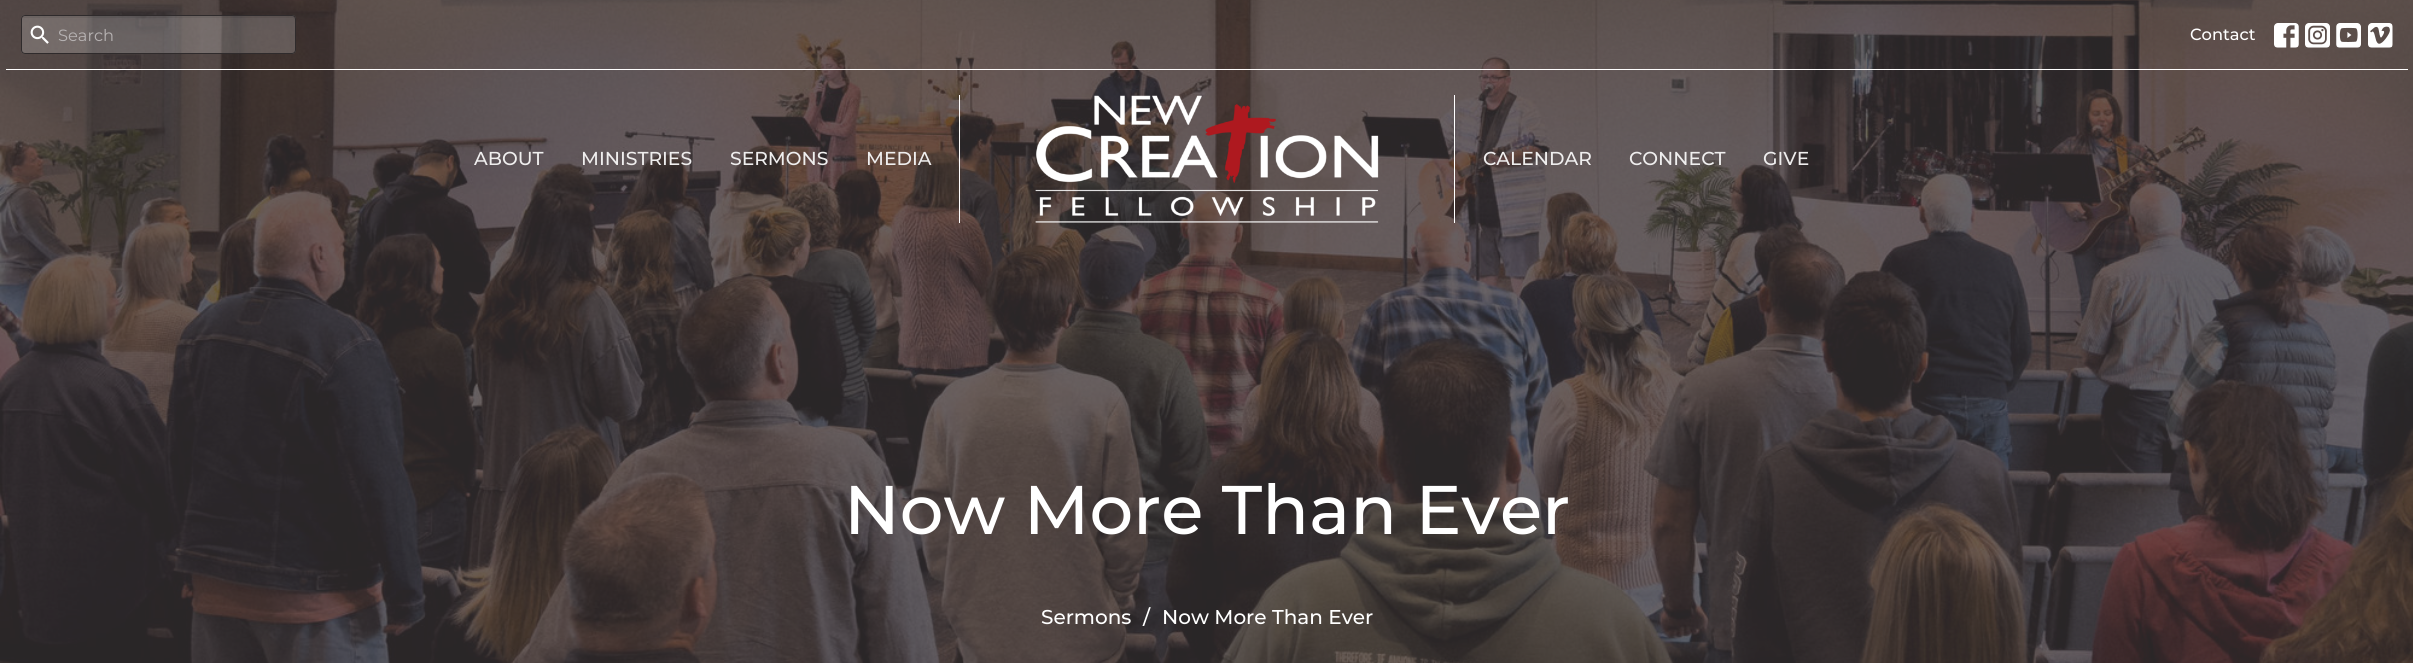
#include <cairo/cairo.h>
#include <math.h>
#include <stddef.h>

typedef struct { double x, y; const char *s; } line_t;
static cairo_t *cr;

static void rgb(unsigned color)
{
	cairo_set_source_rgb(cr, (color >> 16) / 255.0, (color >> 8 & 255) / 255.0, (color & 255) / 255.0);
}

static void rrect(double x, double y, double w, double h, double r)
{
	cairo_new_sub_path(cr);
	cairo_arc(cr, x + w - r, y + h - r, r, 0, M_PI / 2);
	cairo_arc(cr, x + r, y + h - r, r, M_PI / 2, M_PI);
	cairo_arc(cr, x + r, y + r, r, M_PI, 1.5 * M_PI);
	cairo_arc(cr, x + w - r, y + r, r, 1.5 * M_PI, 2 * M_PI);
	cairo_close_path(cr);
}

static void image(const char *path, double x, double y, double w, double h)
{
	cairo_surface_t *image = cairo_image_surface_create_from_png(path);
	cairo_save(cr);
	cairo_set_source_surface(cr, image, x, y);
	cairo_rectangle(cr, x, y, w, h);
	cairo_fill(cr);
	cairo_restore(cr);
	cairo_surface_destroy(image);
}

int main(void) {
	cairo_surface_t *surface = cairo_image_surface_create(CAIRO_FORMAT_RGB24, 2413, 663);
	cr = cairo_create(surface);
	cairo_font_options_t *options = cairo_font_options_create();
	cairo_font_options_set_hint_metrics(options, CAIRO_HINT_METRICS_OFF);
	cairo_font_options_set_hint_style(options, CAIRO_HINT_STYLE_NONE);
	cairo_set_font_options(cr, options);
	cairo_set_miter_limit(cr, 4);
	rgb(0xffffff);
	cairo_paint(cr);
	image("img/7.png", 0, 0, 2413, 663);
	rgb(0xffffff);
	cairo_rectangle(cr, 6, 69, 2402, 1);
	cairo_fill(cr);
	cairo_set_source_rgba(cr, 1, 1, 1, 0.2);
	rrect(21, 15, 275, 39, 4);
	cairo_fill(cr);
	cairo_set_source_rgba(cr, 0, 0, 0, 0.07);
	cairo_new_path(cr);
	cairo_move_to(cr, 25, 18);
	cairo_line_to(cr, 292, 18);
	cairo_curve_to(cr, 294, 18, 295, 19, 295, 20);
	cairo_line_to(cr, 295, 18);
	cairo_curve_to(cr, 295, 17, 294, 16, 292, 16);
	cairo_line_to(cr, 26, 16);
	cairo_curve_to(cr, 24, 16, 23, 17, 23, 18);
	cairo_close_path(cr);
	cairo_fill(cr);
	rrect(21.5, 15.5, 274, 38, 3.5);
	rgb(0x2f2b2c);
	cairo_set_line_width(cr, 1);
	cairo_stroke(cr);
	image("img/1.png", 30, 25, 19, 19);
	image("img/2.png", 2274, 23, 25, 25);
	image("img/3.png", 2305, 23, 25, 25);
	image("img/4.png", 2336, 23, 25, 25);
	image("img/5.png", 2368, 23, 25, 25);
	rgb(0xffffff);
	cairo_rectangle(cr, 1454, 95, 1, 128);
	cairo_fill(cr);
	cairo_rectangle(cr, 959, 95, 1, 128);
	cairo_fill(cr);
	image("img/6.png", 1035, 95, 344, 128);
	cairo_select_font_face(cr, "Montserrat", CAIRO_FONT_SLANT_NORMAL, CAIRO_FONT_WEIGHT_NORMAL);
	cairo_set_font_size(cr, 16.25);
	rgb(0xb7b3b3);
	cairo_move_to(cr, 58, 41);
	cairo_show_text(cr, "Search");
	cairo_select_font_face(cr, "Montserrat Medium", CAIRO_FONT_SLANT_NORMAL, CAIRO_FONT_WEIGHT_NORMAL);
	rgb(0xffffff);
	cairo_move_to(cr, 2190, 40);
	cairo_show_text(cr, "Contact");
	cairo_set_font_size(cr, 18.75);
	rgb(0xefeeee);
	{
		static const line_t items[] = {
			{474, 165, "ABOUT"},
			{581, 165, "MINISTRIES"},
			{730, 165, "SERMONS"},
			{866, 165, "MEDIA"},
			{1483, 165, "CALENDAR"},
			{1629, 165, "CONNECT"},
			{1763, 165, "GIVE"},
		};
		for (size_t i = 0; i < sizeof items / sizeof *items; i++) {
			cairo_move_to(cr, items[i].x, items[i].y);
			cairo_show_text(cr, items[i].s);
		}
	}
	cairo_set_font_size(cr, 68.75);
	rgb(0xffffff);
	cairo_move_to(cr, 844, 534);
	cairo_show_text(cr, "Now More Than Ever");
	cairo_set_font_size(cr, 20);
	{
		static const line_t items[] = {
			{1041, 624, "Sermons"},
			{1143, 624, "/"},
			{1162, 624, "Now More Than Ever"},
		};
		for (size_t i = 0; i < sizeof items / sizeof *items; i++) {
			cairo_move_to(cr, items[i].x, items[i].y);
			cairo_show_text(cr, items[i].s);
		}
	}
	cairo_surface_write_to_png(surface, "page.png");
	cairo_font_options_destroy(options);
	cairo_destroy(cr);
	cairo_surface_destroy(surface);
	return 0;
}
